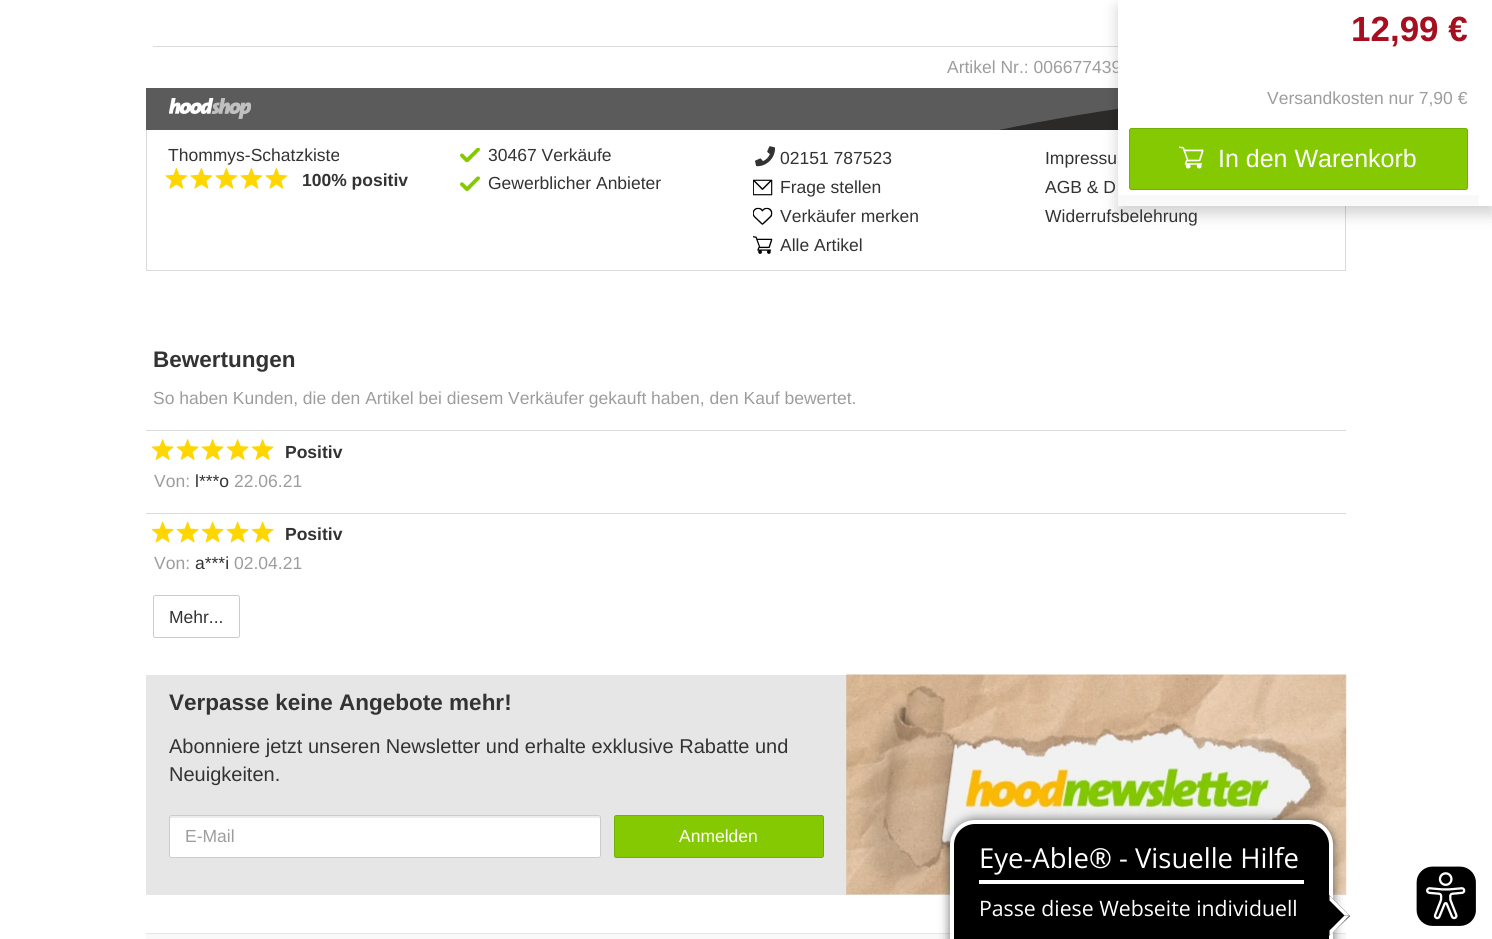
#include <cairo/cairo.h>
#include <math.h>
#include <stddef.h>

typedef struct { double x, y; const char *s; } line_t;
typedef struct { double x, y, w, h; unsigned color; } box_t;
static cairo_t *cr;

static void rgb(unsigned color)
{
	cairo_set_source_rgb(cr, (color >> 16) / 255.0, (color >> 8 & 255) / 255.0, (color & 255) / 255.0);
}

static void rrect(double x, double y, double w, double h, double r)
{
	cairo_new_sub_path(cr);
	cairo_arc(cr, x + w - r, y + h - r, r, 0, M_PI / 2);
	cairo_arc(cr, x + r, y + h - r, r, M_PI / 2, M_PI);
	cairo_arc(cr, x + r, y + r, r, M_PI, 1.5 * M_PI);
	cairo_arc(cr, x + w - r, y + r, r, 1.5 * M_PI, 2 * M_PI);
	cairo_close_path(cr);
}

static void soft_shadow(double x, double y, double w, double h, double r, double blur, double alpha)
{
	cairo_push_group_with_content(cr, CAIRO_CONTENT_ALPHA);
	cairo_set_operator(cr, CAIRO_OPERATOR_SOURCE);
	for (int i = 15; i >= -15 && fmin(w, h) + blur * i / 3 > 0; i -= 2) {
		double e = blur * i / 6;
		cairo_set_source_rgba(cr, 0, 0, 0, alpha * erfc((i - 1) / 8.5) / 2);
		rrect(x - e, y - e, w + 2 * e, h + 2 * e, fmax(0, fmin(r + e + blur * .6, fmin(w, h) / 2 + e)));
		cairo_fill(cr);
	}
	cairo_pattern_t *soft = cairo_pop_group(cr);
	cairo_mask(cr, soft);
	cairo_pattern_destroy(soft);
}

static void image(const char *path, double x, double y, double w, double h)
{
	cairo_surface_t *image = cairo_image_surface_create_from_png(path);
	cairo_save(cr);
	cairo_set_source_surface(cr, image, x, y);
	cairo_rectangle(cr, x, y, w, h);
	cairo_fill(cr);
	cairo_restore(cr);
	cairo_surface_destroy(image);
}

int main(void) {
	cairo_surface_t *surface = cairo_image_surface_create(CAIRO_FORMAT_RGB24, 1492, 939);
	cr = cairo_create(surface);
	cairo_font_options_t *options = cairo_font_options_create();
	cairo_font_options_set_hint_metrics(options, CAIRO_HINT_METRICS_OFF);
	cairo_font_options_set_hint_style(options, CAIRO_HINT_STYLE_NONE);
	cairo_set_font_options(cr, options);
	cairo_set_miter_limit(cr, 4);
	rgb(0xffffff);
	cairo_paint(cr);
	rgb(0xdadada);
	cairo_rectangle(cr, 153, 46, 965, 1);
	cairo_fill(cr);
	rgb(0x5b5b5b);
	cairo_rectangle(cr, 146, 88, 972, 42);
	cairo_fill(cr);
	cairo_save(cr);
	cairo_rectangle(cr, 994, 88, 352, 42);
	cairo_clip(cr);
	rgb(0x2b2a29);
	cairo_set_fill_rule(cr, CAIRO_FILL_RULE_EVEN_ODD);
	cairo_new_path(cr);
	cairo_move_to(cr, 994, 131);
	cairo_curve_to(cr, 1108, 107, 1225, 92, 1346, 90);
	cairo_line_to(cr, 1346, 131);
	cairo_line_to(cr, 994, 131);
	cairo_fill(cr);
	cairo_restore(cr);
	image("img/1.png", 169, 98, 82, 21);
	{
		static const box_t items[] = {
			{1345, 206, 1, 65, 0xdadada},
			{146, 270, 1200, 1, 0xdadada},
			{146, 130, 1, 141, 0xdadada},
		};
		for (size_t i = 0; i < sizeof items / sizeof *items; i++) {
			rgb(items[i].color);
			cairo_rectangle(cr, items[i].x, items[i].y, items[i].w, items[i].h);
			cairo_fill(cr);
		}
	}
	image("img/2.png", 165, 168, 23, 21);
	image("img/2.png", 190, 168, 23, 21);
	image("img/2.png", 215, 168, 23, 21);
	image("img/2.png", 240, 168, 23, 21);
	image("img/2.png", 265, 168, 23, 21);
	image("img/3.png", 460, 148, 20, 15);
	image("img/4.png", 460, 176, 20, 15);
	image("img/5.png", 755, 146, 20, 21);
	image("img/6.png", 753, 179, 20, 17);
	image("img/7.png", 753, 207, 20, 18);
	image("img/8.png", 753, 236, 20, 18);
	rgb(0x000000);
	soft_shadow(1118, 8, 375, 206, 0, 7.5, 0.18);
	rgb(0xdadada);
	cairo_rectangle(cr, 146, 430, 1200, 1);
	cairo_fill(cr);
	image("img/10.png", 151, 439, 23, 21);
	image("img/10.png", 176, 439, 23, 21);
	image("img/10.png", 201, 439, 23, 21);
	image("img/10.png", 226, 439, 23, 21);
	image("img/10.png", 251, 439, 23, 21);
	cairo_rectangle(cr, 146, 513, 1200, 1);
	cairo_fill(cr);
	image("img/11.png", 151, 521, 23, 22);
	image("img/11.png", 176, 521, 23, 22);
	image("img/11.png", 201, 521, 23, 22);
	image("img/11.png", 226, 521, 23, 22);
	image("img/11.png", 251, 521, 23, 22);
	rrect(153.5, 595.5, 86, 42, 2);
	rgb(0xcccccc);
	cairo_set_line_width(cr, 1);
	cairo_stroke(cr);
	rgb(0xe6e6e6);
	cairo_rectangle(cr, 146, 675, 1200, 220);
	cairo_fill(cr);
	rgb(0xffffff);
	rrect(169, 815, 432, 43, 2.5);
	cairo_fill(cr);
	rgb(0xececec);
	cairo_new_path(cr);
	cairo_move_to(cr, 171, 818);
	cairo_line_to(cr, 599, 818);
	cairo_line_to(cr, 600, 819);
	cairo_line_to(cr, 600, 817);
	cairo_curve_to(cr, 600, 816, 600, 816, 599, 816);
	cairo_line_to(cr, 171, 816);
	cairo_curve_to(cr, 170, 816, 170, 816, 170, 817);
	cairo_line_to(cr, 170, 819);
	cairo_close_path(cr);
	cairo_fill(cr);
	rrect(169.5, 815.5, 431, 42, 2);
	rgb(0xcccccc);
	cairo_stroke(cr);
	rgb(0x85c903);
	rrect(614.5, 815.5, 209, 42, 2);
	cairo_fill_preserve(cr);
	rgb(0x74b003);
	cairo_stroke(cr);
	image("img/12.png", 846, 674, 501, 221);
	rgb(0xf9f9f9);
	cairo_rectangle(cr, 146, 934, 1200, 5);
	cairo_fill(cr);
	rgb(0xe6e6e6);
	cairo_rectangle(cr, 146, 933, 1200, 1);
	cairo_fill(cr);
	rgb(0x000000);
	soft_shadow(949, 819, 385, 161, 26, 5, 0.5);
	rgb(0x000000);
	rrect(952, 822, 379, 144, 23);
	cairo_fill_preserve(cr);
	rgb(0xffffff);
	cairo_set_line_width(cr, 4);
	cairo_stroke(cr);
	cairo_rectangle(cr, 979, 880, 325, 4);
	cairo_fill(cr);
	rgb(0x000000);
	cairo_new_path(cr);
	cairo_move_to(cr, 1329, 895);
	cairo_line_to(cr, 1350, 916);
	cairo_line_to(cr, 1329, 936);
	cairo_line_to(cr, 1309, 916);
	cairo_close_path(cr);
	cairo_fill(cr);
	rgb(0xffffff);
	cairo_new_path(cr);
	cairo_move_to(cr, 1329.5, 895.5);
	cairo_line_to(cr, 1349.5, 915.5);
	cairo_line_to(cr, 1344.5, 915.5);
	cairo_line_to(cr, 1329.5, 900.5);
	cairo_close_path(cr);
	cairo_fill(cr);
	cairo_new_path(cr);
	cairo_move_to(cr, 1349.5, 915.5);
	cairo_line_to(cr, 1329.5, 936);
	cairo_line_to(cr, 1329.5, 930.5);
	cairo_line_to(cr, 1344.5, 915.5);
	cairo_close_path(cr);
	cairo_fill(cr);
	image("img/13.png", 1416, 866, 60, 60);
	cairo_select_font_face(cr, "Liberation Sans", CAIRO_FONT_SLANT_NORMAL, CAIRO_FONT_WEIGHT_NORMAL);
	cairo_set_font_size(cr, 17.5);
	rgb(0x9d9d9d);
	cairo_move_to(cr, 947, 73);
	cairo_show_text(cr, "Artikel Nr.: 006677439");
	rgb(0x333333);
	cairo_move_to(cr, 168, 161);
	cairo_show_text(cr, "Thommys-Schatzkiste");
	cairo_select_font_face(cr, "Liberation Sans", CAIRO_FONT_SLANT_NORMAL, CAIRO_FONT_WEIGHT_BOLD);
	cairo_move_to(cr, 302, 186);
	cairo_show_text(cr, "100% positiv");
	cairo_select_font_face(cr, "Liberation Sans", CAIRO_FONT_SLANT_NORMAL, CAIRO_FONT_WEIGHT_NORMAL);
	{
		static const line_t items[] = {
			{488, 161, "30467 Verkäufe"},
			{488, 189, "Gewerblicher Anbieter"},
			{780, 164, "02151 787523"},
			{780, 193, "Frage stellen"},
			{780, 222, "Verkäufer merken"},
			{780, 251, "Alle Artikel"},
			{1045, 164, "Impressu"},
			{1045, 193, "AGB & D"},
			{1045, 222, "Widerrufsbelehrung"},
		};
		for (size_t i = 0; i < sizeof items / sizeof *items; i++) {
			cairo_move_to(cr, items[i].x, items[i].y);
			cairo_show_text(cr, items[i].s);
		}
	}
	rgb(0xffffff);
	cairo_rectangle(cr, 1118, 0, 374, 206);
	cairo_fill(cr);
	cairo_select_font_face(cr, "Liberation Sans", CAIRO_FONT_SLANT_NORMAL, CAIRO_FONT_WEIGHT_BOLD);
	cairo_set_font_size(cr, 35);
	rgb(0xa50f1f);
	cairo_move_to(cr, 1351, 41);
	cairo_show_text(cr, "12,99 €");
	cairo_select_font_face(cr, "Liberation Sans", CAIRO_FONT_SLANT_NORMAL, CAIRO_FONT_WEIGHT_NORMAL);
	cairo_set_font_size(cr, 17.5);
	rgb(0x9d9d9d);
	cairo_move_to(cr, 1267, 104);
	cairo_show_text(cr, "Versandkosten nur 7,90 €");
	rgb(0x85c903);
	rrect(1129.5, 128.5, 338, 61, 2);
	cairo_fill_preserve(cr);
	rgb(0x74b003);
	cairo_set_line_width(cr, 1);
	cairo_stroke(cr);
	image("img/9.png", 1179, 146, 25, 23);
	cairo_set_font_size(cr, 25);
	rgb(0xffffff);
	cairo_move_to(cr, 1218, 167);
	cairo_show_text(cr, "In den Warenkorb");
	rgb(0xf9f9f9);
	cairo_rectangle(cr, 1118, 195, 361, 11);
	cairo_fill(cr);
	cairo_select_font_face(cr, "Liberation Sans", CAIRO_FONT_SLANT_NORMAL, CAIRO_FONT_WEIGHT_BOLD);
	cairo_set_font_size(cr, 22.5);
	rgb(0x333333);
	cairo_move_to(cr, 153, 367);
	cairo_show_text(cr, "Bewertungen");
	cairo_select_font_face(cr, "Liberation Sans", CAIRO_FONT_SLANT_NORMAL, CAIRO_FONT_WEIGHT_NORMAL);
	cairo_set_font_size(cr, 17.5);
	rgb(0x9d9d9d);
	cairo_move_to(cr, 153, 404);
	cairo_show_text(cr, "So haben Kunden, die den Artikel bei diesem Verkäufer gekauft haben, den Kauf bewertet.");
	cairo_select_font_face(cr, "Liberation Sans", CAIRO_FONT_SLANT_NORMAL, CAIRO_FONT_WEIGHT_BOLD);
	rgb(0x333333);
	cairo_move_to(cr, 285, 458);
	cairo_show_text(cr, "Positiv");
	cairo_select_font_face(cr, "Liberation Sans", CAIRO_FONT_SLANT_NORMAL, CAIRO_FONT_WEIGHT_NORMAL);
	rgb(0x9d9d9d);
	cairo_move_to(cr, 154, 487);
	cairo_show_text(cr, "Von:");
	rgb(0x333333);
	cairo_move_to(cr, 195, 487);
	cairo_show_text(cr, "l***o");
	rgb(0x9d9d9d);
	cairo_move_to(cr, 234, 487);
	cairo_show_text(cr, "22.06.21");
	cairo_select_font_face(cr, "Liberation Sans", CAIRO_FONT_SLANT_NORMAL, CAIRO_FONT_WEIGHT_BOLD);
	rgb(0x333333);
	cairo_move_to(cr, 285, 540);
	cairo_show_text(cr, "Positiv");
	cairo_select_font_face(cr, "Liberation Sans", CAIRO_FONT_SLANT_NORMAL, CAIRO_FONT_WEIGHT_NORMAL);
	rgb(0x9d9d9d);
	cairo_move_to(cr, 154, 569);
	cairo_show_text(cr, "Von:");
	rgb(0x333333);
	cairo_move_to(cr, 195, 569);
	cairo_show_text(cr, "a***i");
	rgb(0x9d9d9d);
	cairo_move_to(cr, 234, 569);
	cairo_show_text(cr, "02.04.21");
	rgb(0x333333);
	cairo_move_to(cr, 169, 623);
	cairo_show_text(cr, "Mehr...");
	cairo_select_font_face(cr, "Liberation Sans", CAIRO_FONT_SLANT_NORMAL, CAIRO_FONT_WEIGHT_BOLD);
	cairo_set_font_size(cr, 22.5);
	cairo_move_to(cr, 169, 710);
	cairo_show_text(cr, "Verpasse keine Angebote mehr!");
	cairo_select_font_face(cr, "Liberation Sans", CAIRO_FONT_SLANT_NORMAL, CAIRO_FONT_WEIGHT_NORMAL);
	cairo_set_font_size(cr, 20);
	cairo_move_to(cr, 169, 753);
	cairo_show_text(cr, "Abonniere jetzt unseren Newsletter und erhalte exklusive Rabatte und");
	cairo_move_to(cr, 169, 781);
	cairo_show_text(cr, "Neuigkeiten.");
	cairo_set_font_size(cr, 17.5);
	rgb(0x9d9d9d);
	cairo_move_to(cr, 185, 842);
	cairo_show_text(cr, "E-Mail");
	rgb(0xffffff);
	cairo_move_to(cr, 679, 842);
	cairo_show_text(cr, "Anmelden");
	cairo_select_font_face(cr, "Open Sans", CAIRO_FONT_SLANT_NORMAL, CAIRO_FONT_WEIGHT_NORMAL);
	cairo_set_font_size(cr, 27.5);
	cairo_move_to(cr, 979, 868);
	cairo_show_text(cr, "Eye-Able® - Visuelle Hilfe");
	cairo_set_font_size(cr, 21.25);
	cairo_move_to(cr, 979, 916);
	cairo_show_text(cr, "Passe diese Webseite individuell");
	cairo_surface_write_to_png(surface, "page.png");
	cairo_font_options_destroy(options);
	cairo_destroy(cr);
	cairo_surface_destroy(surface);
	return 0;
}
